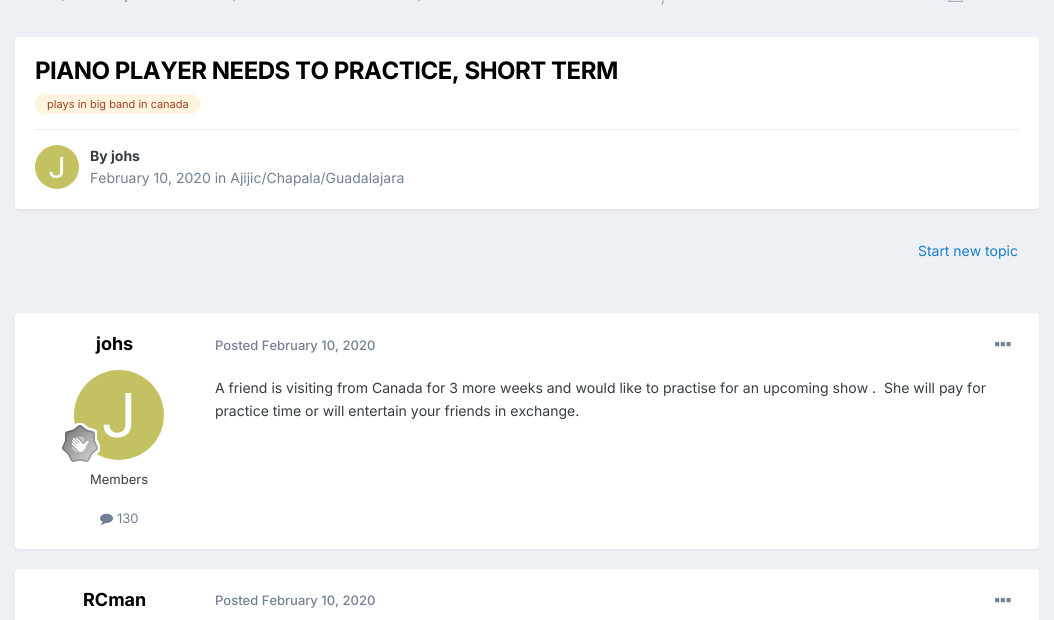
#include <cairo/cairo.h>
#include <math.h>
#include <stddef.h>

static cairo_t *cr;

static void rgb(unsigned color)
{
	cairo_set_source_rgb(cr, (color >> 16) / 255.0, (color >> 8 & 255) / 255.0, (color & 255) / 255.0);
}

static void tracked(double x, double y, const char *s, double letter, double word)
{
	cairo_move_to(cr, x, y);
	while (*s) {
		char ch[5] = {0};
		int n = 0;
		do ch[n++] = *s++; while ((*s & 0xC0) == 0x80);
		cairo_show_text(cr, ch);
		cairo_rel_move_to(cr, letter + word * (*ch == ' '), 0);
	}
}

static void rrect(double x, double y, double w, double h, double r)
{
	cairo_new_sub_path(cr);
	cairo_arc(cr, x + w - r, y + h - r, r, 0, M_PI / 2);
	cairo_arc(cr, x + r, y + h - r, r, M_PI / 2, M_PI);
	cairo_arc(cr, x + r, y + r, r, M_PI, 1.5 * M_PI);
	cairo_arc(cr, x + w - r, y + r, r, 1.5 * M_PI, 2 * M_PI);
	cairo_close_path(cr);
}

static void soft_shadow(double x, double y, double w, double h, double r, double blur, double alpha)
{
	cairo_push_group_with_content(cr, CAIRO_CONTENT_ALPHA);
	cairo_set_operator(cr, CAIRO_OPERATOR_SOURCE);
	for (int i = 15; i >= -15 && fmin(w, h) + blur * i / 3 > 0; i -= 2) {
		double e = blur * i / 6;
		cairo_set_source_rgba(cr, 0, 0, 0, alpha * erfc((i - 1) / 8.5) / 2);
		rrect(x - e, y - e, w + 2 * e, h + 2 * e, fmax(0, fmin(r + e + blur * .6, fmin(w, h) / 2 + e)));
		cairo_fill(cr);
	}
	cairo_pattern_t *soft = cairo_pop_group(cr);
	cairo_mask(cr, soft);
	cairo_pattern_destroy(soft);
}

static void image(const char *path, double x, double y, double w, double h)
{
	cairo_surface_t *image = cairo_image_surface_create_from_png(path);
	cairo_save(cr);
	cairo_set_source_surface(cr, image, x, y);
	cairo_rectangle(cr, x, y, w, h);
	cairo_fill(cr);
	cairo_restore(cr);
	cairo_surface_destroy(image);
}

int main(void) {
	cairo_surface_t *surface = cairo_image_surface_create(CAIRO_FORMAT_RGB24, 1054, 620);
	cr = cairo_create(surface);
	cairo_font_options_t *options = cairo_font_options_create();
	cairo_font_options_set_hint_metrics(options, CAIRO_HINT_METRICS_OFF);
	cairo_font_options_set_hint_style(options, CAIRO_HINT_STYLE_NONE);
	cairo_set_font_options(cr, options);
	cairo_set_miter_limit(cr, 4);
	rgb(0xedf0f4);
	cairo_paint(cr);
	image("img/1.png", 62, 0, 2, 2);
	image("img/1.png", 233, 0, 2, 2);
	image("img/1.png", 418, 0, 2, 2);
	image("img/2.png", 948, 0, 15, 2);
	rgb(0x2d3748);
	soft_shadow(16, 40, 1022, 170, 3, 2, 0.1);
	rgb(0xffffff);
	rrect(15, 37, 1024, 172, 4);
	cairo_fill(cr);
	rgb(0xfff4df);
	rrect(35, 94, 166, 20, 10);
	cairo_fill(cr);
	rgb(0xefeff0);
	cairo_rectangle(cr, 35, 129, 984, 1);
	cairo_fill(cr);
	image("img/3.png", 35, 145, 44, 44);
	rgb(0x2d3748);
	soft_shadow(16, 316, 1022, 234, 3, 2, 0.1);
	rgb(0xffffff);
	rrect(15, 313, 1024, 236, 4);
	cairo_fill(cr);
	image("img/4.png", 74, 370, 90, 90);
	image("img/5.png", 62, 423, 38, 39);
	image("img/6.png", 100, 513, 13, 12);
	image("img/7.png", 995, 342, 16, 5);
	rgb(0x2d3748);
	soft_shadow(16, 572, 1022, 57, 3, 2, 0.1);
	rgb(0xffffff);
	rrect(15, 569, 1024, 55, 4);
	cairo_fill(cr);
	image("img/7.png", 995, 598, 16, 5);
	cairo_select_font_face(cr, "Inter Medium", CAIRO_FONT_SLANT_NORMAL, CAIRO_FONT_WEIGHT_NORMAL);
	cairo_set_font_size(cr, 13);
	rgb(0x718096);
	cairo_move_to(cr, 124, 2);
	cairo_show_text(cr, ".");
	rgb(0x96a2b2);
	cairo_move_to(cr, 661, 2);
	cairo_show_text(cr, ",");
	cairo_select_font_face(cr, "Inter", CAIRO_FONT_SLANT_NORMAL, CAIRO_FONT_WEIGHT_BOLD);
	cairo_set_font_size(cr, 24);
	rgb(0x000000);
	tracked(35, 79, "PIANO PLAYER NEEDS TO PRACTICE, SHORT TERM", -0.5, 0);
	cairo_select_font_face(cr, "Inter", CAIRO_FONT_SLANT_NORMAL, CAIRO_FONT_WEIGHT_NORMAL);
	cairo_set_font_size(cr, 11);
	rgb(0x9c4221);
	cairo_move_to(cr, 47, 108);
	cairo_show_text(cr, "plays in big band in canada");
	cairo_select_font_face(cr, "Inter", CAIRO_FONT_SLANT_NORMAL, CAIRO_FONT_WEIGHT_BOLD);
	cairo_set_font_size(cr, 14);
	rgb(0x353c41);
	cairo_move_to(cr, 90, 161);
	cairo_show_text(cr, "By johs");
	cairo_select_font_face(cr, "Inter", CAIRO_FONT_SLANT_NORMAL, CAIRO_FONT_WEIGHT_NORMAL);
	rgb(0x718096);
	cairo_move_to(cr, 90, 183);
	cairo_show_text(cr, "February 10, 2020 in Ajijic/Chapala/Guadalajara");
	rgb(0x177ec9);
	cairo_move_to(cr, 918, 256);
	cairo_show_text(cr, "Start new topic");
	cairo_select_font_face(cr, "Inter", CAIRO_FONT_SLANT_NORMAL, CAIRO_FONT_WEIGHT_BOLD);
	cairo_set_font_size(cr, 18);
	rgb(0x000000);
	cairo_move_to(cr, 96, 350);
	cairo_show_text(cr, "johs");
	cairo_select_font_face(cr, "Inter", CAIRO_FONT_SLANT_NORMAL, CAIRO_FONT_WEIGHT_NORMAL);
	cairo_set_font_size(cr, 13);
	rgb(0x353c41);
	cairo_move_to(cr, 90, 484);
	cairo_show_text(cr, "Members");
	rgb(0x718096);
	cairo_move_to(cr, 117, 523);
	cairo_show_text(cr, "130");
	cairo_select_font_face(cr, "Inter Medium", CAIRO_FONT_SLANT_NORMAL, CAIRO_FONT_WEIGHT_NORMAL);
	cairo_move_to(cr, 215, 350);
	cairo_show_text(cr, "Posted February 10, 2020");
	cairo_select_font_face(cr, "Inter", CAIRO_FONT_SLANT_NORMAL, CAIRO_FONT_WEIGHT_NORMAL);
	cairo_set_font_size(cr, 14);
	rgb(0x353c41);
	cairo_move_to(cr, 215, 393);
	cairo_show_text(cr, "A friend is visiting from Canada for 3 more weeks and would like to practise for an upcoming show .  She will pay for");
	cairo_move_to(cr, 215, 416);
	cairo_show_text(cr, "practice time or will entertain your friends in exchange.");
	cairo_select_font_face(cr, "Inter", CAIRO_FONT_SLANT_NORMAL, CAIRO_FONT_WEIGHT_BOLD);
	cairo_set_font_size(cr, 18);
	rgb(0x000000);
	cairo_move_to(cr, 83, 606);
	cairo_show_text(cr, "RCman");
	cairo_select_font_face(cr, "Inter Medium", CAIRO_FONT_SLANT_NORMAL, CAIRO_FONT_WEIGHT_NORMAL);
	cairo_set_font_size(cr, 13);
	rgb(0x718096);
	cairo_move_to(cr, 215, 605);
	cairo_show_text(cr, "Posted February 10, 2020");
	cairo_surface_write_to_png(surface, "page.png");
	cairo_font_options_destroy(options);
	cairo_destroy(cr);
	cairo_surface_destroy(surface);
	return 0;
}
